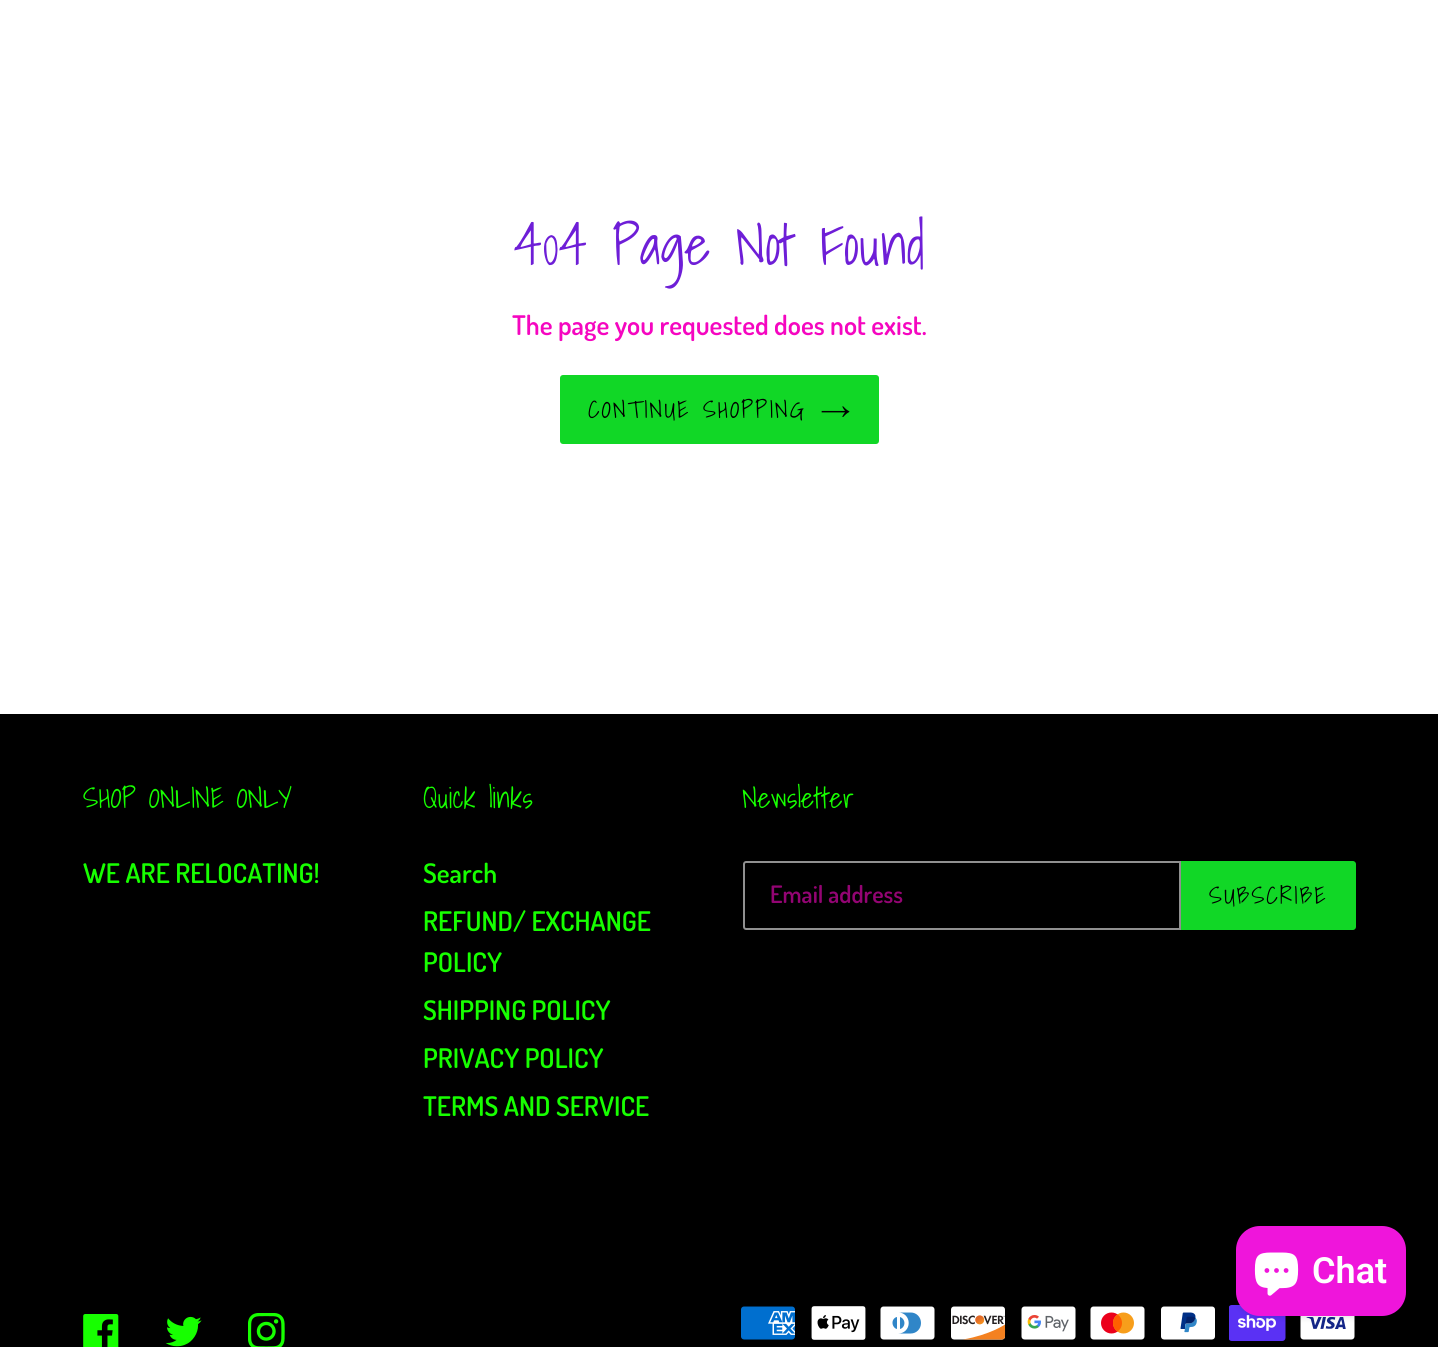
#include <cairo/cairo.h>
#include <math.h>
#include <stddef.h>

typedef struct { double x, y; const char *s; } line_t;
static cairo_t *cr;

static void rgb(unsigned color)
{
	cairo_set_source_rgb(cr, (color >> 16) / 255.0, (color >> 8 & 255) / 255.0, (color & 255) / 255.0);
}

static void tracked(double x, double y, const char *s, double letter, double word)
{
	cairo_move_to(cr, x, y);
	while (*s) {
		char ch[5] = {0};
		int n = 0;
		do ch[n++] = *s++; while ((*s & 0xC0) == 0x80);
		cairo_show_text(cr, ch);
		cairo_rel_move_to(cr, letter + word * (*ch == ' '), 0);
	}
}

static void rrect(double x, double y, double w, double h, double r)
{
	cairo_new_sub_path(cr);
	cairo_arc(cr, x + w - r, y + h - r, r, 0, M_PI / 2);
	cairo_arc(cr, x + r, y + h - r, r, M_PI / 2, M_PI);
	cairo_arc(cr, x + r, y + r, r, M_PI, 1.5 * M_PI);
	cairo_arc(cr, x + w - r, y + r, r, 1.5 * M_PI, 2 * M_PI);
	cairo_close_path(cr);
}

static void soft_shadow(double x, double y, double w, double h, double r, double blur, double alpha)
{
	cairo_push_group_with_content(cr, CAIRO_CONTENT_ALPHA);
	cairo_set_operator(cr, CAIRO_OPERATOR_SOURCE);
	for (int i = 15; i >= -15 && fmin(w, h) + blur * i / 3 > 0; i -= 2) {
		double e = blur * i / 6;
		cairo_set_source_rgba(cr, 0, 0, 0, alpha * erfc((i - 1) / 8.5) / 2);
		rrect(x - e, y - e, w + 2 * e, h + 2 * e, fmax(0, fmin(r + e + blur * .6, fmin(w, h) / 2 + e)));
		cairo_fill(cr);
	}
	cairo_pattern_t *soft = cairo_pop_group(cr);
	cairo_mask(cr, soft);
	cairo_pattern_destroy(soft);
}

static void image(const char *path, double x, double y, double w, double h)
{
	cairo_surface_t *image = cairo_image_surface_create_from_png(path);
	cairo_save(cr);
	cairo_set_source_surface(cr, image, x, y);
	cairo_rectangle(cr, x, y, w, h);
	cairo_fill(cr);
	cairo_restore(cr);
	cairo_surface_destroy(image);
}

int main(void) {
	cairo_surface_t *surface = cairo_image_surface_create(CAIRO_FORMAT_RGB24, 1438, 1347);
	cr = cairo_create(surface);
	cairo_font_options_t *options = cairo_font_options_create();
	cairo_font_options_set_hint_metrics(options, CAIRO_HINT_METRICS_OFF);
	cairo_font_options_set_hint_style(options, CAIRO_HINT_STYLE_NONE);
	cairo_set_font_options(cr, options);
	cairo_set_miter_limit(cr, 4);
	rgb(0xffffff);
	cairo_paint(cr);
	rgb(0x11d726);
	rrect(560, 375, 319, 69, 3);
	cairo_fill(cr);
	image("img/1.png", 821, 406, 29, 11);
	rgb(0x000000);
	cairo_rectangle(cr, 0, 714, 1438, 633);
	cairo_fill(cr);
	cairo_new_path(cr);
	cairo_move_to(cr, 746, 862);
	cairo_line_to(cr, 1180, 862);
	cairo_line_to(cr, 1180, 929);
	cairo_line_to(cr, 746, 929);
	cairo_curve_to(cr, 745, 929, 744, 928, 744, 927);
	cairo_line_to(cr, 744, 864);
	cairo_curve_to(cr, 744, 863, 745, 862, 746, 862);
	cairo_close_path(cr);
	rgb(0x909090);
	cairo_stroke(cr);
	rgb(0x11d726);
	cairo_new_path(cr);
	cairo_move_to(cr, 1181, 861);
	cairo_line_to(cr, 1353, 861);
	cairo_curve_to(cr, 1354.5, 861, 1356, 862.5, 1356, 864);
	cairo_line_to(cr, 1356, 927);
	cairo_curve_to(cr, 1356, 928.5, 1354.5, 930, 1353, 930);
	cairo_line_to(cr, 1181, 930);
	cairo_close_path(cr);
	cairo_fill(cr);
	image("img/2.png", 83, 1314, 36, 33);
	image("img/3.png", 165, 1316, 37, 31);
	image("img/4.png", 248, 1313, 37, 34);
	image("img/5.png", 741, 1306, 54, 34);
	image("img/6.png", 811, 1306, 55, 34);
	image("img/7.png", 880, 1306, 55, 34);
	image("img/8.png", 951, 1306, 55, 34);
	image("img/9.png", 1021, 1306, 55, 34);
	image("img/10.png", 1090, 1306, 55, 34);
	image("img/11.png", 1161, 1306, 54, 34);
	image("img/12.png", 1229, 1305, 57, 36);
	image("img/13.png", 1300, 1316, 55, 24);
	rgb(0x000000);
	soft_shadow(1236, 1226, 170, 90, 24, 4, 0.15);
	rgb(0xef15db);
	rrect(1236, 1226, 170, 90, 24);
	cairo_fill(cr);
	image("img/14.png", 1254, 1252, 45, 44);
	cairo_select_font_face(cr, "Shadows Into Light", CAIRO_FONT_SLANT_NORMAL, CAIRO_FONT_WEIGHT_NORMAL);
	cairo_set_font_size(cr, 55.5);
	rgb(0x6e1ed7);
	cairo_move_to(cr, 514, 265);
	cairo_show_text(cr, "404 Page Not Found");
	cairo_select_font_face(cr, "Dosis SemiBold", CAIRO_FONT_SLANT_NORMAL, CAIRO_FONT_WEIGHT_NORMAL);
	cairo_set_font_size(cr, 27);
	rgb(0xf506c0);
	cairo_move_to(cr, 512, 335);
	cairo_show_text(cr, "The page you requested does not exist.");
	cairo_select_font_face(cr, "Shadows Into Light", CAIRO_FONT_SLANT_NORMAL, CAIRO_FONT_WEIGHT_NORMAL);
	cairo_set_font_size(cr, 24);
	rgb(0x000000);
	tracked(588, 418, "CONTINUE SHOPPING", 1.9, 0);
	cairo_set_font_size(cr, 28.5);
	rgb(0x17ff00);
	cairo_move_to(cr, 83, 808);
	cairo_show_text(cr, "SHOP ONLINE ONLY");
	cairo_select_font_face(cr, "Dosis SemiBold", CAIRO_FONT_SLANT_NORMAL, CAIRO_FONT_WEIGHT_NORMAL);
	cairo_set_font_size(cr, 27);
	cairo_move_to(cr, 83, 883);
	cairo_show_text(cr, "WE ARE RELOCATING!");
	cairo_select_font_face(cr, "Shadows Into Light", CAIRO_FONT_SLANT_NORMAL, CAIRO_FONT_WEIGHT_NORMAL);
	cairo_set_font_size(cr, 28.5);
	cairo_move_to(cr, 423, 808);
	cairo_show_text(cr, "Quick links");
	cairo_select_font_face(cr, "Dosis SemiBold", CAIRO_FONT_SLANT_NORMAL, CAIRO_FONT_WEIGHT_NORMAL);
	cairo_set_font_size(cr, 27);
	{
		static const line_t items[] = {
			{423, 883, "Search"},
			{423, 931, "REFUND/ EXCHANGE"},
			{423, 972, "POLICY"},
			{423, 1020, "SHIPPING POLICY"},
			{423, 1068, "PRIVACY POLICY"},
			{423, 1116, "TERMS AND SERVICE"},
		};
		for (size_t i = 0; i < sizeof items / sizeof *items; i++) {
			cairo_move_to(cr, items[i].x, items[i].y);
			cairo_show_text(cr, items[i].s);
		}
	}
	cairo_select_font_face(cr, "Shadows Into Light", CAIRO_FONT_SLANT_NORMAL, CAIRO_FONT_WEIGHT_NORMAL);
	cairo_set_font_size(cr, 28.5);
	cairo_move_to(cr, 742, 808);
	cairo_show_text(cr, "Newsletter");
	cairo_select_font_face(cr, "Dosis SemiBold", CAIRO_FONT_SLANT_NORMAL, CAIRO_FONT_WEIGHT_NORMAL);
	cairo_set_font_size(cr, 24);
	rgb(0x930473);
	cairo_move_to(cr, 770, 903);
	cairo_show_text(cr, "Email address");
	cairo_select_font_face(cr, "Shadows Into Light", CAIRO_FONT_SLANT_NORMAL, CAIRO_FONT_WEIGHT_NORMAL);
	rgb(0x000000);
	tracked(1209, 904, "SUBSCRIBE", 1.9, 0);
	cairo_select_font_face(cr, "Roboto SemiBold", CAIRO_FONT_SLANT_NORMAL, CAIRO_FONT_WEIGHT_NORMAL);
	cairo_set_font_size(cr, 36);
	rgb(0xffffff);
	cairo_move_to(cr, 1312, 1283);
	cairo_show_text(cr, "Chat");
	cairo_surface_write_to_png(surface, "page.png");
	cairo_font_options_destroy(options);
	cairo_destroy(cr);
	cairo_surface_destroy(surface);
	return 0;
}
